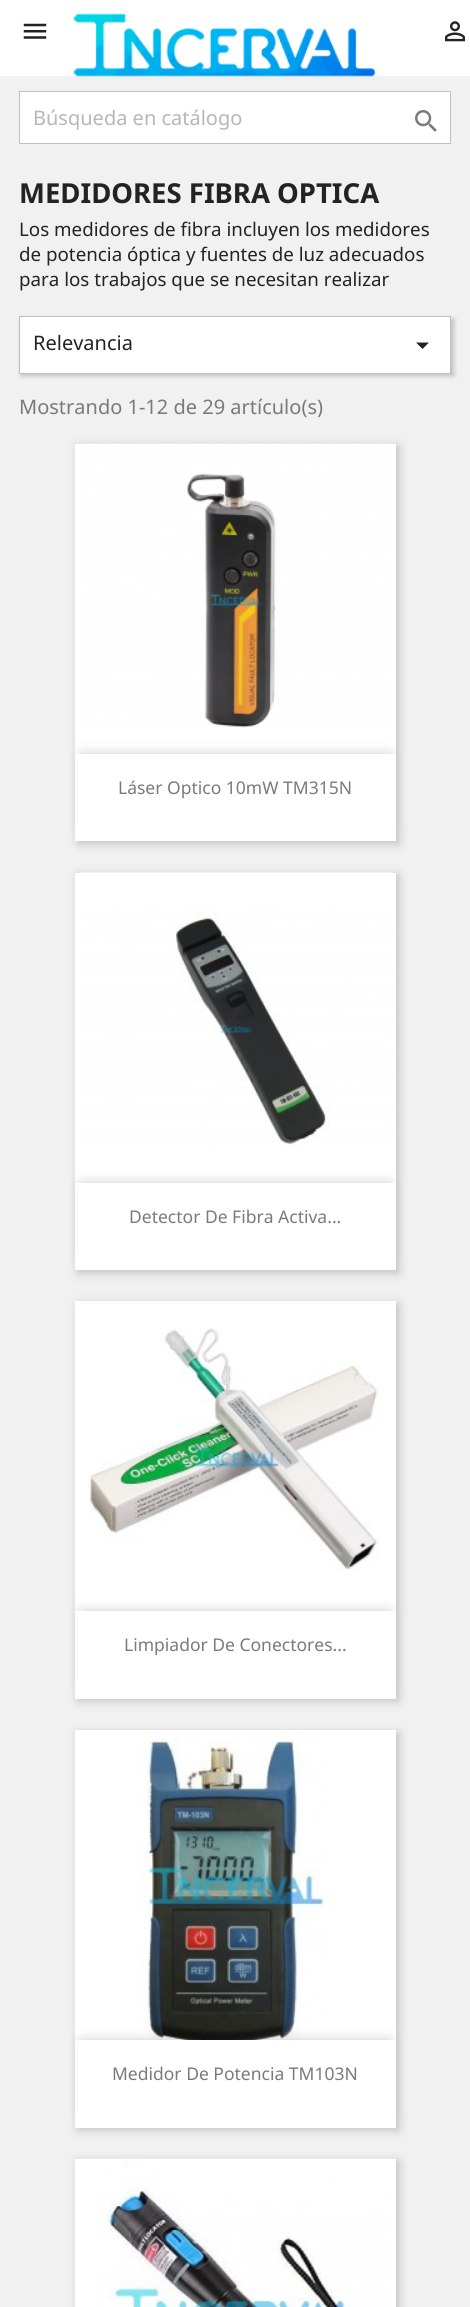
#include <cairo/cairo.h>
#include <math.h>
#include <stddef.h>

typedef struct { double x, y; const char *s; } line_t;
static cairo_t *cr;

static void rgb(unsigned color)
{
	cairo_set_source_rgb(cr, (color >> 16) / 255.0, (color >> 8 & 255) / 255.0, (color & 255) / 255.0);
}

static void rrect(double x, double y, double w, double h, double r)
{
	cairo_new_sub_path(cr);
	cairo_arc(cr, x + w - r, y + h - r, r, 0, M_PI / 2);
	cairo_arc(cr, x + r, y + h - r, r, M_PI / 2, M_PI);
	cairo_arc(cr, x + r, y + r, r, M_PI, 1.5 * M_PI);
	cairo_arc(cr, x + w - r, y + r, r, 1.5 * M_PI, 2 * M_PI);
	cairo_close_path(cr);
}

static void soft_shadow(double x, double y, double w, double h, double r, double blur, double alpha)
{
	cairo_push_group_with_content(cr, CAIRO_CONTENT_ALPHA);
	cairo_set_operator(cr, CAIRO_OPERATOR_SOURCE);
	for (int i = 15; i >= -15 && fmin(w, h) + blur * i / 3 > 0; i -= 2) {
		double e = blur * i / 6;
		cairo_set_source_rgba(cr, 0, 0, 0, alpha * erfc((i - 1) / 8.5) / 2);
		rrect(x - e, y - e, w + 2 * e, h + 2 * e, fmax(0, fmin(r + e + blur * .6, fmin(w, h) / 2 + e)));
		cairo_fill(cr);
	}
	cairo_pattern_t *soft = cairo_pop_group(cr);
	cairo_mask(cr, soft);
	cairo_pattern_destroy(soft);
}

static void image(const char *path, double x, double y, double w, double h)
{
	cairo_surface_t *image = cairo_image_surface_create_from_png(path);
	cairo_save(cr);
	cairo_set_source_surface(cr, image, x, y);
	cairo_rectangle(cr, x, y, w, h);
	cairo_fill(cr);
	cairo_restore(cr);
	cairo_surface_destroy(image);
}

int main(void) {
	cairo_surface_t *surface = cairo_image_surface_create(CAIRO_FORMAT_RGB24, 470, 2307);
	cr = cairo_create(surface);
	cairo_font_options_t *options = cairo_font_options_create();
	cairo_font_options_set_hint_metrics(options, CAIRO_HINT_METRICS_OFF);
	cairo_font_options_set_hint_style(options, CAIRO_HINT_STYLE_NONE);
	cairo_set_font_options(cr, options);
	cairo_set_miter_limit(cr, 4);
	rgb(0xf1f1f1);
	cairo_paint(cr);
	rgb(0xffffff);
	cairo_rectangle(cr, 0, 0, 470, 76);
	cairo_fill(cr);
	image("img/1.png", 23, 23, 24, 16);
	image("img/2.png", 73, 13, 303, 64);
	image("img/3.png", 445, 21, 20, 21);
	cairo_rectangle(cr, 19.5, 91.5, 431, 52);
	cairo_fill_preserve(cr);
	rgb(0xbfbfbf);
	cairo_set_line_width(cr, 1);
	cairo_stroke(cr);
	image("img/4.png", 415, 110, 22, 22);
	rgb(0x000000);
	soft_shadow(21, 319, 433, 57, 0, 2.5, 0.2);
	rgb(0xffffff);
	cairo_rectangle(cr, 19.5, 316.5, 431, 57);
	cairo_fill_preserve(cr);
	rgb(0xbfbfbf);
	cairo_stroke(cr);
	rgb(0x232323);
	cairo_new_path(cr);
	cairo_move_to(cr, 416, 342.5);
	cairo_line_to(cr, 429, 342.5);
	cairo_line_to(cr, 422.5, 349);
	cairo_close_path(cr);
	cairo_fill(cr);
	rgb(0x000000);
	soft_shadow(78, 446, 321, 398, 0, 5, 0.2);
	rgb(0xffffff);
	cairo_rectangle(cr, 75, 444, 321, 397);
	cairo_fill(cr);
	image("img/5.png", 80, 443, 312, 285);
	cairo_save(cr);
	cairo_set_fill_rule(cr, CAIRO_FILL_RULE_EVEN_ODD);
	cairo_new_path(cr);
	cairo_move_to(cr, 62, 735);
	cairo_line_to(cr, 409, 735);
	cairo_line_to(cr, 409, 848);
	cairo_line_to(cr, 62, 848);
	cairo_close_path(cr);
	cairo_move_to(cr, 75, 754);
	cairo_line_to(cr, 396, 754);
	cairo_line_to(cr, 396, 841);
	cairo_line_to(cr, 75, 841);
	cairo_close_path(cr);
	cairo_clip(cr);
	rgb(0x000000);
	soft_shadow(81, 754, 309, 75, 0, 6, 0.2);
	cairo_restore(cr);
	rgb(0x000000);
	soft_shadow(78, 875, 321, 398, 0, 5, 0.2);
	rgb(0xffffff);
	cairo_rectangle(cr, 75, 873, 321, 397);
	cairo_fill(cr);
	image("img/6.png", 80, 872, 313, 275);
	cairo_save(cr);
	cairo_set_fill_rule(cr, CAIRO_FILL_RULE_EVEN_ODD);
	cairo_new_path(cr);
	cairo_move_to(cr, 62, 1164);
	cairo_line_to(cr, 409, 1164);
	cairo_line_to(cr, 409, 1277);
	cairo_line_to(cr, 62, 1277);
	cairo_close_path(cr);
	cairo_move_to(cr, 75, 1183);
	cairo_line_to(cr, 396, 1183);
	cairo_line_to(cr, 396, 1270);
	cairo_line_to(cr, 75, 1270);
	cairo_close_path(cr);
	cairo_clip(cr);
	rgb(0x000000);
	soft_shadow(81, 1183, 309, 75, 0, 6, 0.2);
	cairo_restore(cr);
	rgb(0x000000);
	soft_shadow(78, 1304, 321, 397, 0, 5, 0.2);
	rgb(0xffffff);
	cairo_rectangle(cr, 75, 1301, 321, 310);
	cairo_fill(cr);
	image("img/7.png", 89, 1328, 291, 243);
	rgb(0x000000);
	soft_shadow(81, 1611, 309, 75, 0, 6, 0.2);
	rgb(0xffffff);
	cairo_rectangle(cr, 75, 1611, 321, 88);
	cairo_fill(cr);
	rgb(0x000000);
	soft_shadow(78, 1733, 321, 397, 0, 5, 0.2);
	rgb(0xffffff);
	cairo_rectangle(cr, 75, 1730, 321, 310);
	cairo_fill(cr);
	image("img/8.png", 140, 1734, 190, 306);
	rgb(0x000000);
	soft_shadow(81, 2040, 309, 75, 0, 6, 0.2);
	rgb(0xffffff);
	cairo_rectangle(cr, 75, 2040, 321, 88);
	cairo_fill(cr);
	rgb(0x000000);
	soft_shadow(78, 2161, 321, 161, 0, 5, 0.2);
	rgb(0xffffff);
	cairo_rectangle(cr, 75, 2159, 321, 148);
	cairo_fill(cr);
	image("img/9.png", 80, 2158, 312, 149);
	cairo_select_font_face(cr, "Noto Sans", CAIRO_FONT_SLANT_NORMAL, CAIRO_FONT_WEIGHT_NORMAL);
	cairo_set_font_size(cr, 20);
	rgb(0xb7b7b7);
	cairo_move_to(cr, 33, 125);
	cairo_show_text(cr, "Búsqueda en catálogo");
	cairo_select_font_face(cr, "Noto Sans", CAIRO_FONT_SLANT_NORMAL, CAIRO_FONT_WEIGHT_BOLD);
	cairo_set_font_size(cr, 27.5);
	rgb(0x232323);
	cairo_move_to(cr, 19, 203);
	cairo_show_text(cr, "MEDIDORES FIBRA OPTICA");
	cairo_select_font_face(cr, "Noto Sans", CAIRO_FONT_SLANT_NORMAL, CAIRO_FONT_WEIGHT_NORMAL);
	cairo_set_font_size(cr, 18.75);
	{
		static const line_t items[] = {
			{19, 236, "Los medidores de fibra incluyen los medidores"},
			{19, 261, "de potencia óptica y fuentes de luz adecuados"},
			{19, 286, "para los trabajos que se necesitan realizar"},
		};
		for (size_t i = 0; i < sizeof items / sizeof *items; i++) {
			cairo_move_to(cr, items[i].x, items[i].y);
			cairo_show_text(cr, items[i].s);
		}
	}
	cairo_set_font_size(cr, 20);
	cairo_move_to(cr, 33, 350);
	cairo_show_text(cr, "Relevancia");
	rgb(0x7a7a7a);
	cairo_move_to(cr, 19, 414);
	cairo_show_text(cr, "Mostrando 1-12 de 29 artículo(s)");
	cairo_set_font_size(cr, 17.5);
	{
		static const line_t items[] = {
			{118, 794, "Láser Optico 10mW TM315N"},
			{129, 1223, "Detector De Fibra Activa..."},
			{124, 1651, "Limpiador De Conectores..."},
			{112, 2080, "Medidor De Potencia TM103N"},
		};
		for (size_t i = 0; i < sizeof items / sizeof *items; i++) {
			cairo_move_to(cr, items[i].x, items[i].y);
			cairo_show_text(cr, items[i].s);
		}
	}
	cairo_surface_write_to_png(surface, "page.png");
	cairo_font_options_destroy(options);
	cairo_destroy(cr);
	cairo_surface_destroy(surface);
	return 0;
}
